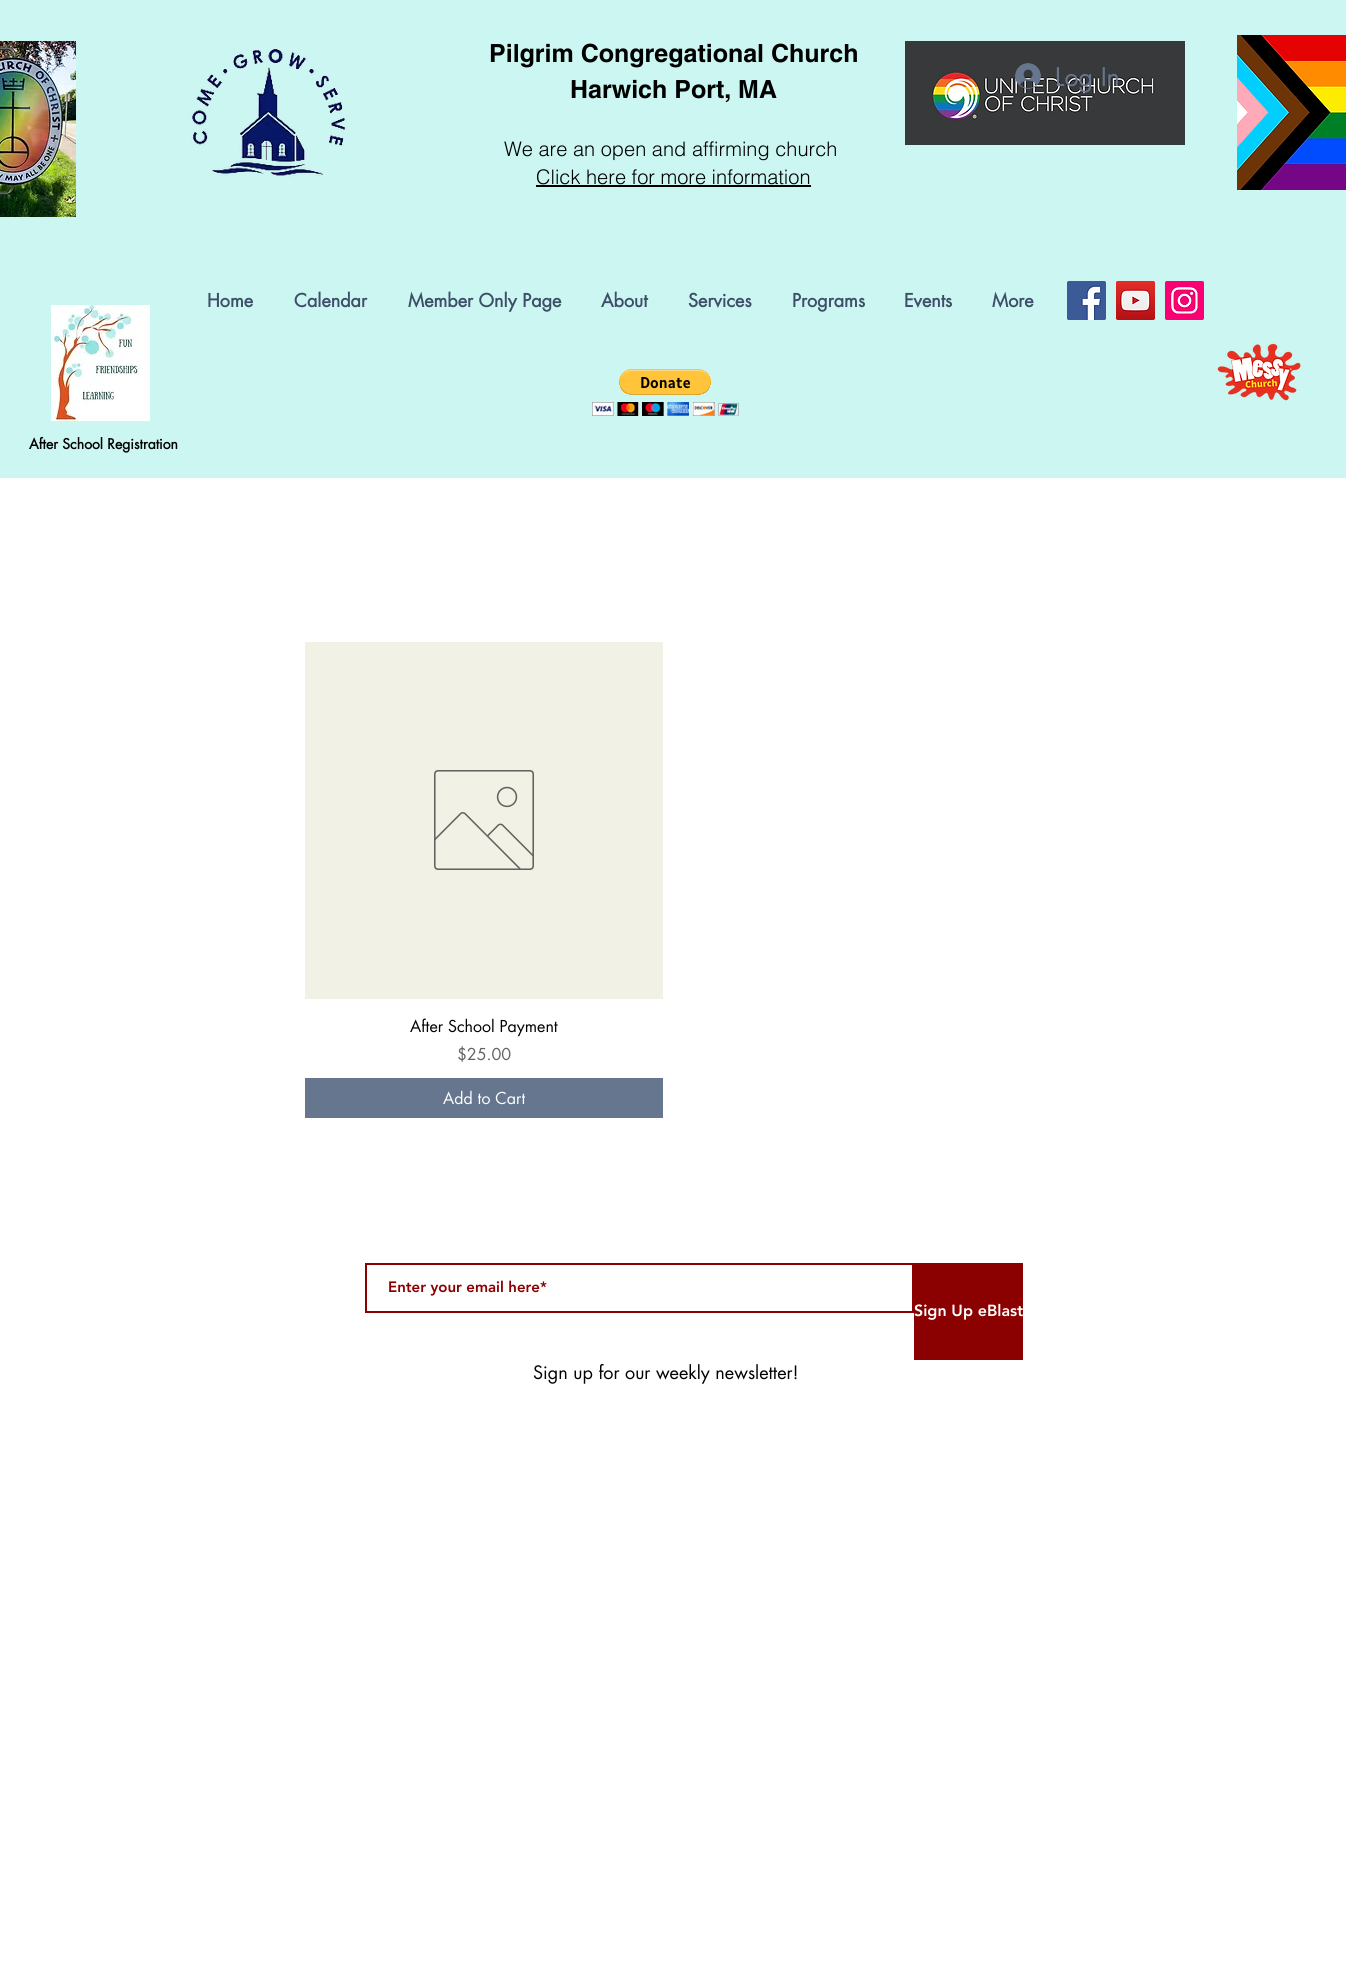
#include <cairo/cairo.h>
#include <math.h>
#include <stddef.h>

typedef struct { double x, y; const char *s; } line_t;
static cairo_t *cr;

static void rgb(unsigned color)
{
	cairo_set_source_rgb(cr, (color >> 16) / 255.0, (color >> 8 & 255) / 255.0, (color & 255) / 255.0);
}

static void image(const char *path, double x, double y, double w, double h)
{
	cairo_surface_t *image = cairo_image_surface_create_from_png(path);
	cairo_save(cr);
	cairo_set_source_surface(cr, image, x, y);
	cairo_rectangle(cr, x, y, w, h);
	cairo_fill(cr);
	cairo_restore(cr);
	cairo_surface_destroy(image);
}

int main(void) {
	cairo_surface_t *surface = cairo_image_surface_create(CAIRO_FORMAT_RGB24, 1346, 1965);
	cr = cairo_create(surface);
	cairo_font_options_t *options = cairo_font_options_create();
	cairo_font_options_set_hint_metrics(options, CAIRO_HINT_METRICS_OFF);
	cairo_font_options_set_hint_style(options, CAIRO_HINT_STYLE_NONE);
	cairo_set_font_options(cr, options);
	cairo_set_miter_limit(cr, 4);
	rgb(0xffffff);
	cairo_paint(cr);
	rgb(0xccf6f1);
	cairo_rectangle(cr, 0, 0, 1346, 478);
	cairo_fill(cr);
	image("img/1.png", 0, 41, 76, 176);
	image("img/2.png", 190, 49, 157, 128);
	rgb(0x000000);
	cairo_rectangle(cr, 536, 185, 275, 2);
	cairo_fill(cr);
	image("img/3.png", 905, 41, 280, 104);
	image("img/4.png", 1237, 35, 109, 155);
	image("img/5.png", 1015, 63, 26, 26);
	image("img/6.png", 1067, 281, 39, 39);
	image("img/7.png", 1116, 281, 39, 39);
	image("img/8.png", 1165, 281, 39, 39);
	image("img/9.png", 51, 305, 99, 116);
	image("img/10.png", 592, 369, 147, 47);
	image("img/11.png", 1217, 343, 84, 58);
	rgb(0xf2f1e6);
	cairo_rectangle(cr, 305, 642, 358, 357);
	cairo_fill(cr);
	image("img/12.png", 434, 770, 100, 100);
	rgb(0x66768e);
	cairo_rectangle(cr, 305, 1078, 358, 40);
	cairo_fill(cr);
	cairo_rectangle(cr, 366, 1264, 547, 48);
	rgb(0x8b0000);
	cairo_stroke(cr);
	cairo_rectangle(cr, 914, 1263, 109, 97);
	cairo_fill(cr);
	cairo_select_font_face(cr, "helvetica", CAIRO_FONT_SLANT_NORMAL, CAIRO_FONT_WEIGHT_BOLD);
	cairo_set_font_size(cr, 25);
	rgb(0x000000);
	cairo_move_to(cr, 489, 62);
	cairo_show_text(cr, "Pilgrim Congregational Church");
	cairo_move_to(cr, 570, 98);
	cairo_show_text(cr, "Harwich Port, MA");
	cairo_select_font_face(cr, "helvetica Light", CAIRO_FONT_SLANT_NORMAL, CAIRO_FONT_WEIGHT_NORMAL);
	cairo_set_font_size(cr, 20);
	cairo_move_to(cr, 504, 156);
	cairo_show_text(cr, "We are an open and affirming church");
	cairo_move_to(cr, 536, 184);
	cairo_show_text(cr, "Click here for more information");
	cairo_select_font_face(cr, "futura", CAIRO_FONT_SLANT_NORMAL, CAIRO_FONT_WEIGHT_NORMAL);
	cairo_set_font_size(cr, 25);
	rgb(0x66768e);
	cairo_move_to(cr, 1055, 86);
	cairo_show_text(cr, "Log In");
	cairo_select_font_face(cr, "futura", CAIRO_FONT_SLANT_NORMAL, CAIRO_FONT_WEIGHT_BOLD);
	cairo_set_font_size(cr, 18);
	rgb(0x3d4e68);
	{
		static const line_t items[] = {
			{207, 307, "Home"},
			{294, 307, "Calendar"},
			{408, 307, "Member Only Page"},
			{601, 307, "About"},
			{688, 307, "Services"},
			{792, 307, "Programs"},
			{904, 307, "Events"},
			{992, 307, "More"},
		};
		for (size_t i = 0; i < sizeof items / sizeof *items; i++) {
			cairo_move_to(cr, items[i].x, items[i].y);
			cairo_show_text(cr, items[i].s);
		}
	}
	cairo_set_font_size(cr, 14);
	rgb(0x000000);
	cairo_move_to(cr, 29, 449);
	cairo_show_text(cr, "After School Registration");
	cairo_select_font_face(cr, "futura", CAIRO_FONT_SLANT_NORMAL, CAIRO_FONT_WEIGHT_NORMAL);
	cairo_set_font_size(cr, 16);
	cairo_move_to(cr, 410, 1032);
	cairo_show_text(cr, "After School Payment");
	rgb(0x62625f);
	cairo_move_to(cr, 457, 1060);
	cairo_show_text(cr, "$25.00");
	rgb(0xffffff);
	cairo_move_to(cr, 443, 1104);
	cairo_show_text(cr, "Add to Cart");
	cairo_select_font_face(cr, "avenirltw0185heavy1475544 Black", CAIRO_FONT_SLANT_NORMAL, CAIRO_FONT_WEIGHT_NORMAL);
	cairo_set_font_size(cr, 15);
	rgb(0x8b0000);
	cairo_move_to(cr, 388, 1292);
	cairo_show_text(cr, "Enter your email here*");
	cairo_set_font_size(cr, 16);
	rgb(0xffffff);
	cairo_move_to(cr, 914, 1316);
	cairo_show_text(cr, "Sign Up eBlast");
	cairo_select_font_face(cr, "futura", CAIRO_FONT_SLANT_NORMAL, CAIRO_FONT_WEIGHT_NORMAL);
	cairo_set_font_size(cr, 18);
	rgb(0x000000);
	cairo_move_to(cr, 533, 1379);
	cairo_show_text(cr, "Sign up for our weekly newsletter!");
	cairo_surface_write_to_png(surface, "page.png");
	cairo_font_options_destroy(options);
	cairo_destroy(cr);
	cairo_surface_destroy(surface);
	return 0;
}
